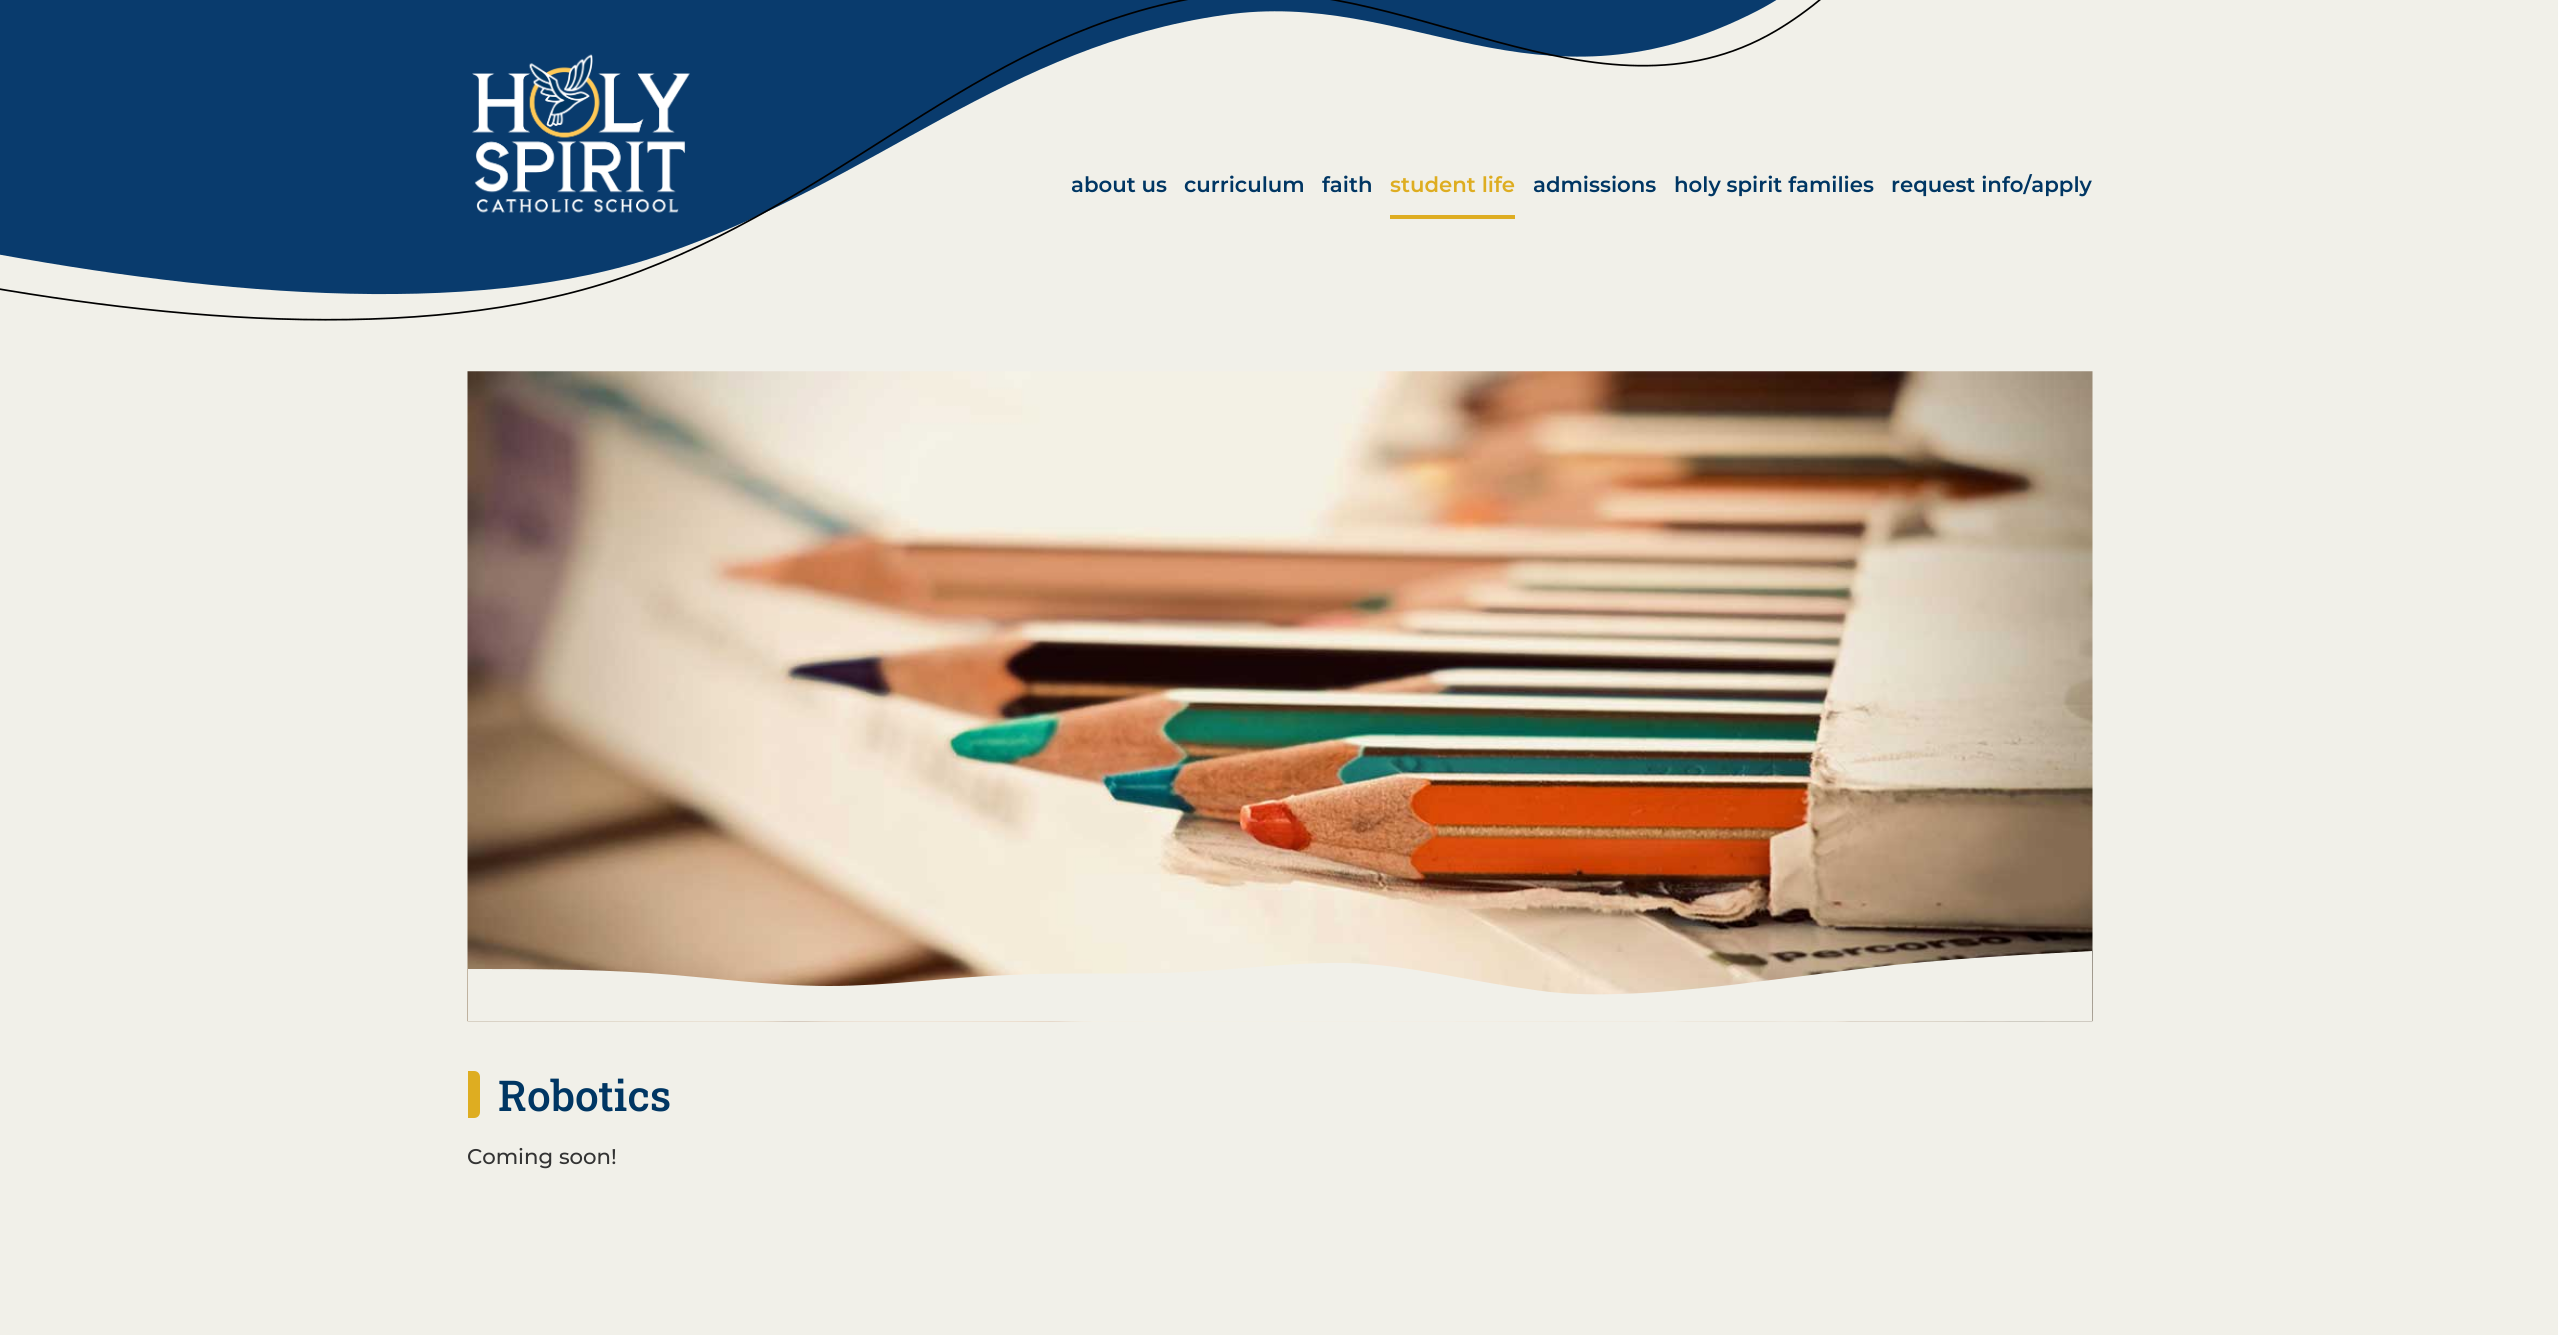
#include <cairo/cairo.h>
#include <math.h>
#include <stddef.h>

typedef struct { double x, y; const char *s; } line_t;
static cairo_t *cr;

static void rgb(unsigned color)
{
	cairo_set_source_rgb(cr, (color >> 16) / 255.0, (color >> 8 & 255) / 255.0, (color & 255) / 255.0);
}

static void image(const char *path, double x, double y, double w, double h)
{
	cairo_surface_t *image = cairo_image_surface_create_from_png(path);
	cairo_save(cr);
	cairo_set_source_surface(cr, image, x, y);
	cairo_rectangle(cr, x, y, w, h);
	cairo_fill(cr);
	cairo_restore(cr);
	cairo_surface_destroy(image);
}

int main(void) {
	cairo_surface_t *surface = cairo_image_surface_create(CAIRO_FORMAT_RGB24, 2558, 1335);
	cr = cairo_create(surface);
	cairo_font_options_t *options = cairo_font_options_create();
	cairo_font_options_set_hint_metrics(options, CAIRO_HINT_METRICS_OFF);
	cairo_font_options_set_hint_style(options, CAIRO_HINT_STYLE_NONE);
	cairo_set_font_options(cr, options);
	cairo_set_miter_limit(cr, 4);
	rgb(0xf1f0e9);
	cairo_paint(cr);
	rgb(0x093b6d);
	cairo_new_path(cr);
	cairo_move_to(cr, 1894, -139);
	cairo_curve_to(cr, 1872, -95, 1838, -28, 1749, 15);
	cairo_curve_to(cr, 1533, 121, 1408, -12, 1224, 15);
	cairo_curve_to(cr, 1006, 46, 878, 180, 664, 254);
	cairo_curve_to(cr, 276, 390, -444, 136, -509, 140);
	cairo_line_to(cr, -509, -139);
	cairo_close_path(cr);
	cairo_fill(cr);
	cairo_new_path(cr);
	cairo_move_to(cr, -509, 176);
	cairo_curve_to(cr, -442, 172, 243, 422.5, 640.5, 271);
	cairo_curve_to(cr, 859, 187.5, 986, 29.5, 1209.5, -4.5);
	cairo_curve_to(cr, 1399, -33.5, 1597, 136, 1775.5, 31);
	cairo_curve_to(cr, 1843.5, -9, 1903.5, -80.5, 1946, -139.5);
	rgb(0x000000);
	cairo_set_line_width(cr, 1.7);
	cairo_stroke(cr);
	image("img/1.png", 472, 54, 218, 159);
	rgb(0xdead21);
	cairo_rectangle(cr, 1390, 215, 125, 4);
	cairo_fill(cr);
	image("img/2.png", 467, 371, 1626, 651);
	rgb(0xf1f0e9);
	cairo_new_path(cr);
	cairo_move_to(cr, 468, 969);
	cairo_curve_to(cr, 528, 969, 588, 969, 648, 973);
	cairo_curve_to(cr, 708, 977, 768, 986, 829, 986);
	cairo_curve_to(cr, 889, 986, 949, 977, 1009, 975);
	cairo_curve_to(cr, 1069, 972, 1130, 975, 1190, 972);
	cairo_curve_to(cr, 1242, 969, 1295, 962, 1348, 963);
	cairo_curve_to(cr, 1409, 965, 1468, 981, 1528, 989);
	cairo_curve_to(cr, 1558, 994, 1588, 995, 1619, 994);
	cairo_curve_to(cr, 1656, 993, 1694, 989, 1731, 985);
	cairo_line_to(cr, 1867, 968);
	cairo_curve_to(cr, 1942, 959, 2017, 955, 2092, 951);
	cairo_line_to(cr, 2092, 1021);
	cairo_line_to(cr, 468, 1021);
	cairo_close_path(cr);
	cairo_fill(cr);
	rgb(0xdead21);
	cairo_new_path(cr);
	cairo_move_to(cr, 468, 1071);
	cairo_line_to(cr, 474, 1071);
	cairo_curve_to(cr, 477.5, 1071, 480, 1073.5, 480, 1077);
	cairo_line_to(cr, 480, 1112);
	cairo_curve_to(cr, 480, 1115.5, 477.5, 1118, 474, 1118);
	cairo_line_to(cr, 468, 1118);
	cairo_close_path(cr);
	cairo_fill(cr);
	cairo_select_font_face(cr, "Montserrat SemiBold", CAIRO_FONT_SLANT_NORMAL, CAIRO_FONT_WEIGHT_NORMAL);
	cairo_set_font_size(cr, 21.25);
	rgb(0x003663);
	{
		static const line_t items[] = {
			{1071, 192, "about us"},
			{1184, 192, "curriculum"},
			{1322, 192, "faith"},
		};
		for (size_t i = 0; i < sizeof items / sizeof *items; i++) {
			cairo_move_to(cr, items[i].x, items[i].y);
			cairo_show_text(cr, items[i].s);
		}
	}
	rgb(0xdead21);
	cairo_move_to(cr, 1390, 192);
	cairo_show_text(cr, "student life");
	rgb(0x003663);
	{
		static const line_t items[] = {
			{1533, 192, "admissions"},
			{1674, 192, "holy spirit families"},
			{1891, 192, "request info/apply"},
		};
		for (size_t i = 0; i < sizeof items / sizeof *items; i++) {
			cairo_move_to(cr, items[i].x, items[i].y);
			cairo_show_text(cr, items[i].s);
		}
	}
	cairo_select_font_face(cr, "Roboto Slab Medium", CAIRO_FONT_SLANT_NORMAL, CAIRO_FONT_WEIGHT_NORMAL);
	cairo_set_font_size(cr, 42.5);
	cairo_move_to(cr, 498, 1111);
	cairo_show_text(cr, "Robotics");
	cairo_select_font_face(cr, "Montserrat Medium", CAIRO_FONT_SLANT_NORMAL, CAIRO_FONT_WEIGHT_NORMAL);
	cairo_set_font_size(cr, 21.25);
	rgb(0x333333);
	cairo_move_to(cr, 467, 1164);
	cairo_show_text(cr, "Coming soon!");
	cairo_surface_write_to_png(surface, "page.png");
	cairo_font_options_destroy(options);
	cairo_destroy(cr);
	cairo_surface_destroy(surface);
	return 0;
}
